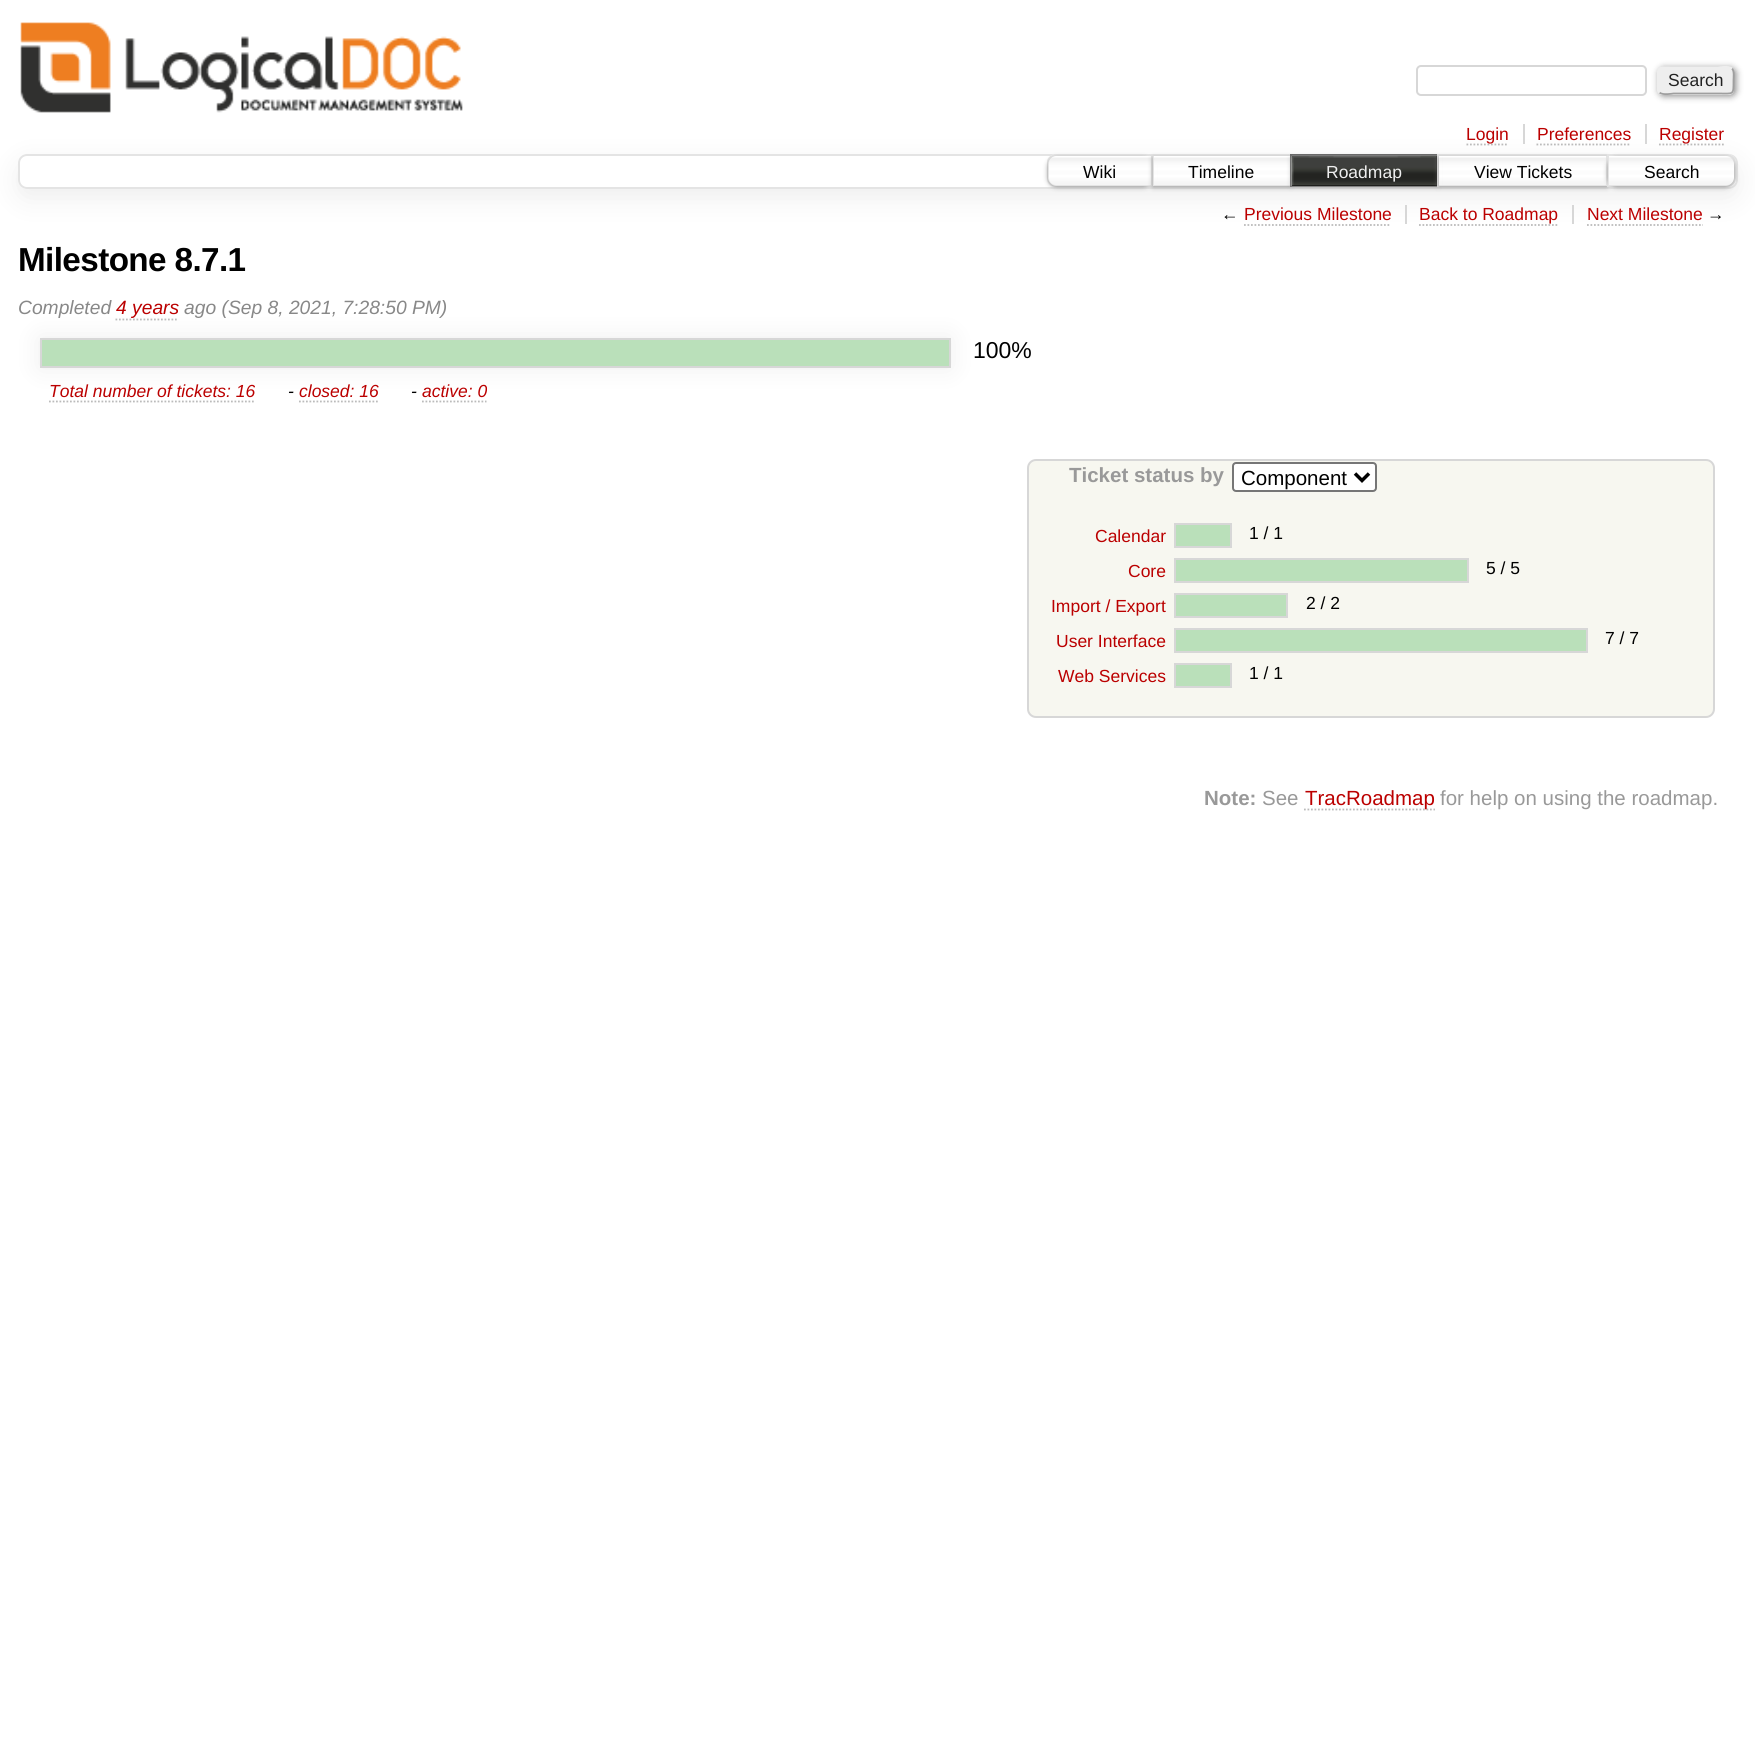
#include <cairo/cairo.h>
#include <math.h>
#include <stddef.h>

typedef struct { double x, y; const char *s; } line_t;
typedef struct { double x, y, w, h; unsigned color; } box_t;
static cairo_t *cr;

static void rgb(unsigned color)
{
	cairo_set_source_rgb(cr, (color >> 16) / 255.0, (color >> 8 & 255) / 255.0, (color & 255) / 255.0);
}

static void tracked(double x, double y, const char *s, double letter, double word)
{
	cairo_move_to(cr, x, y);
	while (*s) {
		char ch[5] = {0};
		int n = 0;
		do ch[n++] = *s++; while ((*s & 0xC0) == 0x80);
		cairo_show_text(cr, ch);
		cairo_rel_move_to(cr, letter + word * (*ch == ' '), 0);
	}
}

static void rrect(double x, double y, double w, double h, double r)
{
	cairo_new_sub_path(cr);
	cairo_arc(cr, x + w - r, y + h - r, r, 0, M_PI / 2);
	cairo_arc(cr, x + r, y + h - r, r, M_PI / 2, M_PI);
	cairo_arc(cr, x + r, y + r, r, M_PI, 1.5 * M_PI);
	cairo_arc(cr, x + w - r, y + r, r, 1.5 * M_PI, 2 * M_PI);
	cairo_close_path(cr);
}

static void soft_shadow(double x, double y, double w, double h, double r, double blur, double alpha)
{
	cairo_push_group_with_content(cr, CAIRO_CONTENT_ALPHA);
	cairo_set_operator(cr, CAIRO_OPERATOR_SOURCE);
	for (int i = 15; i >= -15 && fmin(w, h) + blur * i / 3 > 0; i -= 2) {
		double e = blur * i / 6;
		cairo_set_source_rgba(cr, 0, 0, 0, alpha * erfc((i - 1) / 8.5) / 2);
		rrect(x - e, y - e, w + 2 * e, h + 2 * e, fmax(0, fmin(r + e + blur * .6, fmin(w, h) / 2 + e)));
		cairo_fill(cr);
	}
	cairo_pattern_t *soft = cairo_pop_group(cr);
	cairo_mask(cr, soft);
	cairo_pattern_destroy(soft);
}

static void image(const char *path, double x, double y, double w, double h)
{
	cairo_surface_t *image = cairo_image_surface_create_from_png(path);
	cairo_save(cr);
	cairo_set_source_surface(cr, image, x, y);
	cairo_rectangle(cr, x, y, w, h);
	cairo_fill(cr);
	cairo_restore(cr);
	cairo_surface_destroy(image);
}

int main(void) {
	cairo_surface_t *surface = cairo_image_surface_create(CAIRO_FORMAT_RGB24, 1755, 1737);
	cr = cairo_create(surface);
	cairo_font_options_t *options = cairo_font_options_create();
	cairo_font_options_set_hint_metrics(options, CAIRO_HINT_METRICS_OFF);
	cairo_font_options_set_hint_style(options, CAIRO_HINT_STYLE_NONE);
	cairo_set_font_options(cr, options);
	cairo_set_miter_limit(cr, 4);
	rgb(0xffffff);
	cairo_paint(cr);
	image("img/1.png", 20, 22, 443, 91);
	rrect(1417, 66, 229, 29, 4);
	rgb(0xd7d7d7);
	cairo_stroke(cr);
	rgb(0x888888);
	soft_shadow(1659, 68, 77, 28, 5, 3.5, 1);
	rgb(0xeeeeee);
	rrect(1657, 67, 77, 28, 5);
	cairo_fill(cr);
	cairo_new_path(cr);
	cairo_move_to(cr, 1732, 68.5);
	cairo_curve_to(cr, 1734.5, 71, 1733.5, 77.5, 1733.5, 80.5);
	cairo_curve_to(cr, 1733.5, 95.5, 1734, 93.5, 1718, 93.5);
	cairo_line_to(cr, 1673.5, 93.5);
	cairo_curve_to(cr, 1673, 93.5, 1662.5, 95.5, 1659.5, 92.5);
	rgb(0x9f9f9f);
	cairo_set_line_width(cr, 1.8);
	cairo_stroke(cr);
	cairo_new_path(cr);
	cairo_move_to(cr, 1659.5, 92.5);
	cairo_curve_to(cr, 1657, 90, 1658, 83.5, 1658, 80.5);
	cairo_curve_to(cr, 1658, 65.5, 1657.5, 67.5, 1673.5, 67.5);
	cairo_line_to(cr, 1718, 67.5);
	cairo_curve_to(cr, 1718.5, 67.5, 1729, 65.5, 1732, 68.5);
	rgb(0xeeeeee);
	cairo_stroke(cr);
	cairo_save(cr);
	cairo_set_fill_rule(cr, CAIRO_FILL_RULE_EVEN_ODD);
	cairo_new_path(cr);
	cairo_move_to(cr, 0, 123);
	cairo_line_to(cr, 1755, 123);
	cairo_line_to(cr, 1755, 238);
	cairo_line_to(cr, 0, 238);
	cairo_close_path(cr);
	cairo_move_to(cr, 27, 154);
	cairo_line_to(cr, 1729, 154);
	cairo_curve_to(cr, 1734, 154, 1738, 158, 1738, 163);
	cairo_line_to(cr, 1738, 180);
	cairo_curve_to(cr, 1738, 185, 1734, 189, 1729, 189);
	cairo_line_to(cr, 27, 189);
	cairo_curve_to(cr, 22, 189, 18, 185, 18, 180);
	cairo_line_to(cr, 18, 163);
	cairo_curve_to(cr, 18, 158, 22, 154, 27, 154);
	cairo_close_path(cr);
	cairo_clip(cr);
	rgb(0xeeeeee);
	soft_shadow(18, 163, 1720, 35, 9, 13, 1);
	cairo_restore(cr);
	rgb(0xd7d7d7);
	cairo_rectangle(cr, 1523, 124, 2, 20);
	cairo_fill(cr);
	cairo_new_path(cr);
	cairo_move_to(cr, 1466.5, 144.5);
	cairo_line_to(cr, 1508.5, 144.5);
	rgb(0xbbbbbb);
	cairo_set_dash(cr, (double[]){1.75, 1.75}, 2, 0);
	cairo_stroke(cr);
	rgb(0xd7d7d7);
	cairo_rectangle(cr, 1645, 124, 2, 20);
	cairo_fill(cr);
	cairo_new_path(cr);
	cairo_move_to(cr, 1536.5, 144.5);
	cairo_line_to(cr, 1631, 144.5);
	rgb(0xbbbbbb);
	cairo_stroke(cr);
	cairo_new_path(cr);
	cairo_move_to(cr, 1659, 144.5);
	cairo_line_to(cr, 1725.5, 144.5);
	cairo_stroke(cr);
	rrect(19, 155, 1718, 33, 8);
	rgb(0xe4e4e4);
	cairo_set_line_width(cr, 2);
	cairo_set_dash(cr, NULL, 0, 0);
	cairo_stroke(cr);
	rgb(0xffffff);
	cairo_new_path(cr);
	cairo_move_to(cr, 1056, 154);
	cairo_line_to(cr, 1153, 154);
	cairo_line_to(cr, 1153, 187);
	cairo_line_to(cr, 1056, 187);
	cairo_curve_to(cr, 1051, 187, 1047, 183, 1047, 178);
	cairo_line_to(cr, 1047, 163);
	cairo_curve_to(cr, 1047, 158, 1051, 154, 1056, 154);
	cairo_close_path(cr);
	cairo_fill(cr);
	image("img/2.png", 1047, 157, 104, 30);
	cairo_new_path(cr);
	cairo_move_to(cr, 1056, 155);
	cairo_line_to(cr, 1152, 155);
	cairo_line_to(cr, 1152, 186);
	cairo_line_to(cr, 1056, 186);
	cairo_curve_to(cr, 1051.5, 186, 1048, 182.5, 1048, 178);
	cairo_line_to(cr, 1048, 163);
	cairo_curve_to(cr, 1048, 158.5, 1051.5, 155, 1056, 155);
	cairo_close_path(cr);
	rgb(0xe4e4e4);
	cairo_stroke(cr);
	cairo_save(cr);
	cairo_set_fill_rule(cr, CAIRO_FILL_RULE_EVEN_ODD);
	cairo_new_path(cr);
	cairo_move_to(cr, 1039, 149);
	cairo_line_to(cr, 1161, 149);
	cairo_line_to(cr, 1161, 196);
	cairo_line_to(cr, 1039, 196);
	cairo_close_path(cr);
	cairo_move_to(cr, 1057, 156);
	cairo_line_to(cr, 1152, 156);
	cairo_line_to(cr, 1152, 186);
	cairo_line_to(cr, 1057, 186);
	cairo_curve_to(cr, 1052, 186, 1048, 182, 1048, 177);
	cairo_line_to(cr, 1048, 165);
	cairo_curve_to(cr, 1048, 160, 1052, 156, 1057, 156);
	cairo_close_path(cr);
	cairo_clip(cr);
	rgb(0x999999);
	soft_shadow(1048, 158, 104, 29, 9, 2.5, 1);
	cairo_restore(cr);
	rgb(0xffffff);
	cairo_rectangle(cr, 1154, 160, 3, 25);
	cairo_fill(cr);
	image("img/3.png", 1151, 157, 139, 28);
	cairo_rectangle(cr, 1153, 155, 138, 31);
	rgb(0xe4e4e4);
	cairo_stroke(cr);
	cairo_save(cr);
	cairo_set_fill_rule(cr, CAIRO_FILL_RULE_EVEN_ODD);
	cairo_new_path(cr);
	cairo_move_to(cr, 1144, 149);
	cairo_line_to(cr, 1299, 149);
	cairo_line_to(cr, 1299, 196);
	cairo_line_to(cr, 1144, 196);
	cairo_close_path(cr);
	cairo_move_to(cr, 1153, 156);
	cairo_line_to(cr, 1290, 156);
	cairo_line_to(cr, 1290, 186);
	cairo_line_to(cr, 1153, 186);
	cairo_close_path(cr);
	cairo_clip(cr);
	rgb(0x999999);
	soft_shadow(1153, 158, 137, 29, 0, 2.5, 1);
	cairo_restore(cr);
	cairo_rectangle(cr, 1291, 155, 147, 31);
	rgb(0x666666);
	cairo_stroke(cr);
	rgb(0x999999);
	soft_shadow(1292, 158, 145, 29, 0, 2.5, 1);
	rgb(0x000000);
	cairo_rectangle(cr, 1292, 156, 145, 30);
	cairo_fill(cr);
	image("img/4.png", 1291, 155, 146, 31);
	rgb(0xffffff);
	cairo_rectangle(cr, 1439, 156, 3, 29);
	cairo_fill(cr);
	image("img/5.png", 1439, 157, 167, 28);
	cairo_rectangle(cr, 1438, 155, 169, 31);
	rgb(0xe4e4e4);
	cairo_stroke(cr);
	cairo_save(cr);
	cairo_set_fill_rule(cr, CAIRO_FILL_RULE_EVEN_ODD);
	cairo_new_path(cr);
	cairo_move_to(cr, 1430, 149);
	cairo_line_to(cr, 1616, 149);
	cairo_line_to(cr, 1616, 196);
	cairo_line_to(cr, 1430, 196);
	cairo_close_path(cr);
	cairo_move_to(cr, 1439, 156);
	cairo_line_to(cr, 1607, 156);
	cairo_line_to(cr, 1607, 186);
	cairo_line_to(cr, 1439, 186);
	cairo_close_path(cr);
	cairo_clip(cr);
	rgb(0x999999);
	soft_shadow(1439, 158, 168, 29, 0, 2.5, 1);
	cairo_restore(cr);
	rgb(0xffffff);
	cairo_new_path(cr);
	cairo_move_to(cr, 1607, 154);
	cairo_line_to(cr, 1727, 154);
	cairo_curve_to(cr, 1732, 154, 1736, 158, 1736, 163);
	cairo_line_to(cr, 1736, 178);
	cairo_curve_to(cr, 1736, 183, 1732, 187, 1727, 187);
	cairo_line_to(cr, 1607, 187);
	cairo_close_path(cr);
	cairo_fill(cr);
	image("img/6.png", 1609, 157, 127, 30);
	cairo_new_path(cr);
	cairo_move_to(cr, 1608, 155);
	cairo_line_to(cr, 1727, 155);
	cairo_curve_to(cr, 1731.5, 155, 1735, 158.5, 1735, 163);
	cairo_line_to(cr, 1735, 178);
	cairo_curve_to(cr, 1735, 182.5, 1731.5, 186, 1727, 186);
	cairo_line_to(cr, 1608, 186);
	cairo_close_path(cr);
	rgb(0xe4e4e4);
	cairo_stroke(cr);
	cairo_save(cr);
	cairo_set_fill_rule(cr, CAIRO_FILL_RULE_EVEN_ODD);
	cairo_new_path(cr);
	cairo_move_to(cr, 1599, 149);
	cairo_line_to(cr, 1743, 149);
	cairo_line_to(cr, 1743, 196);
	cairo_line_to(cr, 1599, 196);
	cairo_close_path(cr);
	cairo_move_to(cr, 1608, 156);
	cairo_line_to(cr, 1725, 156);
	cairo_curve_to(cr, 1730, 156, 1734, 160, 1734, 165);
	cairo_line_to(cr, 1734, 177);
	cairo_curve_to(cr, 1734, 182, 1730, 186, 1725, 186);
	cairo_line_to(cr, 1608, 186);
	cairo_close_path(cr);
	cairo_clip(cr);
	rgb(0x999999);
	soft_shadow(1608, 158, 126, 29, 9, 2.5, 1);
	cairo_restore(cr);
	rgb(0xd7d7d7);
	cairo_rectangle(cr, 1405, 205, 2, 19);
	cairo_fill(cr);
	cairo_new_path(cr);
	cairo_move_to(cr, 1244, 225);
	cairo_line_to(cr, 1391, 225);
	rgb(0xbbbbbb);
	cairo_set_line_width(cr, 1.8);
	cairo_set_dash(cr, (double[]){1.75, 1.75}, 2, 0);
	cairo_stroke(cr);
	rgb(0xd7d7d7);
	cairo_rectangle(cr, 1572, 205, 2, 19);
	cairo_fill(cr);
	cairo_new_path(cr);
	cairo_move_to(cr, 1419, 225);
	cairo_line_to(cr, 1559, 225);
	rgb(0xbbbbbb);
	cairo_stroke(cr);
	cairo_new_path(cr);
	cairo_move_to(cr, 1587, 225);
	cairo_line_to(cr, 1703, 225);
	cairo_stroke(cr);
	rgb(0xeeeeee);
	soft_shadow(40, 338, 910, 30, 0, 11.5, 1);
	cairo_new_path(cr);
	cairo_move_to(cr, 115.5, 319.5);
	cairo_line_to(cr, 178.5, 319.5);
	rgb(0xbbbbbb);
	cairo_stroke(cr);
	{
		static const box_t items[] = {
			{40, 338, 910, 2, 0xd7d7d7},
			{949, 338, 2, 30, 0xd7d7d7},
			{40, 366, 910, 2, 0xd7d7d7},
			{40, 338, 2, 30, 0xd7d7d7},
			{42, 340, 907, 26, 0xbae0ba},
		};
		for (size_t i = 0; i < sizeof items / sizeof *items; i++) {
			rgb(items[i].color);
			cairo_rectangle(cr, items[i].x, items[i].y, items[i].w, items[i].h);
			cairo_fill(cr);
		}
	}
	cairo_new_path(cr);
	cairo_move_to(cr, 49, 401.5);
	cairo_line_to(cr, 255.5, 401.5);
	rgb(0xbbbbbb);
	cairo_stroke(cr);
	cairo_new_path(cr);
	cairo_move_to(cr, 299, 401.5);
	cairo_line_to(cr, 378, 401.5);
	cairo_stroke(cr);
	cairo_new_path(cr);
	cairo_move_to(cr, 422, 401.5);
	cairo_line_to(cr, 486.5, 401.5);
	cairo_stroke(cr);
	rgb(0xf7f7f0);
	rrect(1028, 460, 686, 257, 8);
	cairo_fill_preserve(cr);
	rgb(0xd7d7d7);
	cairo_set_line_width(cr, 2);
	cairo_set_dash(cr, NULL, 0, 0);
	cairo_stroke(cr);
	rgb(0xffffff);
	rrect(1233, 463, 143, 28, 3);
	cairo_fill_preserve(cr);
	rgb(0x767676);
	cairo_stroke(cr);
	cairo_new_path(cr);
	cairo_move_to(cr, 1355, 473.5);
	cairo_line_to(cr, 1362, 480.5);
	cairo_line_to(cr, 1369, 473.5);
	rgb(0x000000);
	cairo_set_line_width(cr, 3.5);
	cairo_stroke(cr);
	{
		static const box_t items[] = {
			{1174, 523, 58, 2, 0xd7d7d7},
			{1230, 523, 2, 25, 0xd7d7d7},
			{1174, 546, 58, 2, 0xd7d7d7},
			{1174, 523, 2, 25, 0xd7d7d7},
			{1176, 525, 54, 21, 0xbae0ba},
			{1174, 558, 294, 2, 0xd7d7d7},
			{1467, 558, 2, 25, 0xd7d7d7},
			{1174, 581, 294, 2, 0xd7d7d7},
			{1174, 558, 2, 25, 0xd7d7d7},
			{1176, 560, 291, 21, 0xbae0ba},
			{1174, 593, 114, 2, 0xd7d7d7},
			{1286, 593, 2, 25, 0xd7d7d7},
			{1174, 616, 114, 2, 0xd7d7d7},
			{1174, 593, 2, 25, 0xd7d7d7},
			{1176, 595, 110, 21, 0xbae0ba},
			{1174, 628, 413, 2, 0xd7d7d7},
			{1586, 628, 2, 25, 0xd7d7d7},
			{1174, 651, 413, 2, 0xd7d7d7},
			{1174, 628, 2, 25, 0xd7d7d7},
			{1176, 630, 410, 21, 0xbae0ba},
			{1174, 663, 58, 2, 0xd7d7d7},
			{1230, 663, 2, 25, 0xd7d7d7},
			{1174, 686, 58, 2, 0xd7d7d7},
			{1174, 663, 2, 25, 0xd7d7d7},
			{1176, 665, 54, 21, 0xbae0ba},
		};
		for (size_t i = 0; i < sizeof items / sizeof *items; i++) {
			rgb(items[i].color);
			cairo_rectangle(cr, items[i].x, items[i].y, items[i].w, items[i].h);
			cairo_fill(cr);
		}
	}
	cairo_new_path(cr);
	cairo_move_to(cr, 1304, 809.5);
	cairo_line_to(cr, 1435, 809.5);
	rgb(0xbbbbbb);
	cairo_set_line_width(cr, 1.8);
	cairo_set_dash(cr, (double[]){1.75, 1.75}, 2, 0);
	cairo_stroke(cr);
	cairo_select_font_face(cr, "Liberation Sans", CAIRO_FONT_SLANT_NORMAL, CAIRO_FONT_WEIGHT_NORMAL);
	cairo_set_font_size(cr, 17.5);
	rgb(0x222222);
	cairo_move_to(cr, 1668, 86);
	cairo_show_text(cr, "Search");
	rgb(0xbb0000);
	{
		static const line_t items[] = {
			{1466, 140, "Login"},
			{1537, 140, "Preferences"},
			{1659, 140, "Register"},
		};
		for (size_t i = 0; i < sizeof items / sizeof *items; i++) {
			cairo_move_to(cr, items[i].x, items[i].y);
			cairo_show_text(cr, items[i].s);
		}
	}
	rgb(0x000000);
	cairo_move_to(cr, 1083, 178);
	cairo_show_text(cr, "Wiki");
	cairo_move_to(cr, 1188, 178);
	cairo_show_text(cr, "Timeline");
	rgb(0xeeeeee);
	cairo_move_to(cr, 1326, 178);
	cairo_show_text(cr, "Roadmap");
	rgb(0x000000);
	{
		static const line_t items[] = {
			{1474, 178, "View Tickets"},
			{1644, 178, "Search"},
			{1221, 220, "←"},
		};
		for (size_t i = 0; i < sizeof items / sizeof *items; i++) {
			cairo_move_to(cr, items[i].x, items[i].y);
			cairo_show_text(cr, items[i].s);
		}
	}
	rgb(0xbb0000);
	{
		static const line_t items[] = {
			{1244, 220, "Previous Milestone"},
			{1419, 220, "Back to Roadmap"},
			{1587, 220, "Next Milestone"},
		};
		for (size_t i = 0; i < sizeof items / sizeof *items; i++) {
			cairo_move_to(cr, items[i].x, items[i].y);
			cairo_show_text(cr, items[i].s);
		}
	}
	rgb(0x000000);
	cairo_move_to(cr, 1707, 220);
	cairo_show_text(cr, "→");
	cairo_select_font_face(cr, "Liberation Sans", CAIRO_FONT_SLANT_NORMAL, CAIRO_FONT_WEIGHT_BOLD);
	cairo_set_font_size(cr, 33.25);
	tracked(18, 271, "Milestone 8.7.1", -0.6, 0);
	cairo_select_font_face(cr, "Liberation Sans", CAIRO_FONT_SLANT_ITALIC, CAIRO_FONT_WEIGHT_NORMAL);
	cairo_set_font_size(cr, 19.25);
	rgb(0x888888);
	cairo_move_to(cr, 18, 314);
	cairo_show_text(cr, "Completed");
	rgb(0xbb0000);
	cairo_move_to(cr, 116, 314);
	cairo_show_text(cr, "4 years");
	rgb(0x888888);
	cairo_move_to(cr, 184, 314);
	cairo_show_text(cr, "ago (Sep 8, 2021, 7:28:50 PM)");
	cairo_select_font_face(cr, "Liberation Sans", CAIRO_FONT_SLANT_NORMAL, CAIRO_FONT_WEIGHT_NORMAL);
	cairo_set_font_size(cr, 23);
	rgb(0x000000);
	cairo_move_to(cr, 973, 358);
	cairo_show_text(cr, "100%");
	cairo_select_font_face(cr, "Liberation Sans", CAIRO_FONT_SLANT_ITALIC, CAIRO_FONT_WEIGHT_NORMAL);
	cairo_set_font_size(cr, 17.5);
	rgb(0xbb0000);
	cairo_move_to(cr, 49, 397);
	cairo_show_text(cr, "Total number of tickets: 16");
	rgb(0x000000);
	cairo_move_to(cr, 288, 397);
	cairo_show_text(cr, "-");
	rgb(0xbb0000);
	cairo_move_to(cr, 299, 397);
	cairo_show_text(cr, "closed: 16");
	rgb(0x000000);
	cairo_move_to(cr, 411, 397);
	cairo_show_text(cr, "-");
	rgb(0xbb0000);
	cairo_move_to(cr, 422, 397);
	cairo_show_text(cr, "active: 0");
	cairo_select_font_face(cr, "Liberation Sans", CAIRO_FONT_SLANT_NORMAL, CAIRO_FONT_WEIGHT_BOLD);
	cairo_set_font_size(cr, 20.5);
	rgb(0x999999);
	cairo_move_to(cr, 1069, 482);
	cairo_show_text(cr, "Ticket status by");
	cairo_select_font_face(cr, "Liberation Sans", CAIRO_FONT_SLANT_NORMAL, CAIRO_FONT_WEIGHT_NORMAL);
	rgb(0x000000);
	cairo_move_to(cr, 1241, 485);
	cairo_show_text(cr, "Component");
	cairo_set_font_size(cr, 17.5);
	rgb(0xbb0000);
	cairo_move_to(cr, 1095, 542);
	cairo_show_text(cr, "Calendar");
	rgb(0x000000);
	cairo_move_to(cr, 1249, 539);
	cairo_show_text(cr, "1 / 1");
	rgb(0xbb0000);
	cairo_move_to(cr, 1128, 577);
	cairo_show_text(cr, "Core");
	rgb(0x000000);
	cairo_move_to(cr, 1486, 574);
	cairo_show_text(cr, "5 / 5");
	rgb(0xbb0000);
	cairo_move_to(cr, 1051, 612);
	cairo_show_text(cr, "Import / Export");
	rgb(0x000000);
	cairo_move_to(cr, 1306, 609);
	cairo_show_text(cr, "2 / 2");
	rgb(0xbb0000);
	cairo_move_to(cr, 1056, 647);
	cairo_show_text(cr, "User Interface");
	rgb(0x000000);
	cairo_move_to(cr, 1605, 644);
	cairo_show_text(cr, "7 / 7");
	rgb(0xbb0000);
	cairo_move_to(cr, 1058, 682);
	cairo_show_text(cr, "Web Services");
	rgb(0x000000);
	cairo_move_to(cr, 1249, 679);
	cairo_show_text(cr, "1 / 1");
	cairo_select_font_face(cr, "Liberation Sans", CAIRO_FONT_SLANT_NORMAL, CAIRO_FONT_WEIGHT_BOLD);
	cairo_set_font_size(cr, 20.5);
	rgb(0x999999);
	cairo_move_to(cr, 1204, 805);
	cairo_show_text(cr, "Note:");
	cairo_select_font_face(cr, "Liberation Sans", CAIRO_FONT_SLANT_NORMAL, CAIRO_FONT_WEIGHT_NORMAL);
	cairo_move_to(cr, 1262, 805);
	cairo_show_text(cr, "See");
	rgb(0xbb0000);
	cairo_move_to(cr, 1305, 805);
	cairo_show_text(cr, "TracRoadmap");
	rgb(0x999999);
	cairo_move_to(cr, 1440, 805);
	cairo_show_text(cr, "for help on using the roadmap.");
	cairo_surface_write_to_png(surface, "page.png");
	cairo_font_options_destroy(options);
	cairo_destroy(cr);
	cairo_surface_destroy(surface);
	return 0;
}
